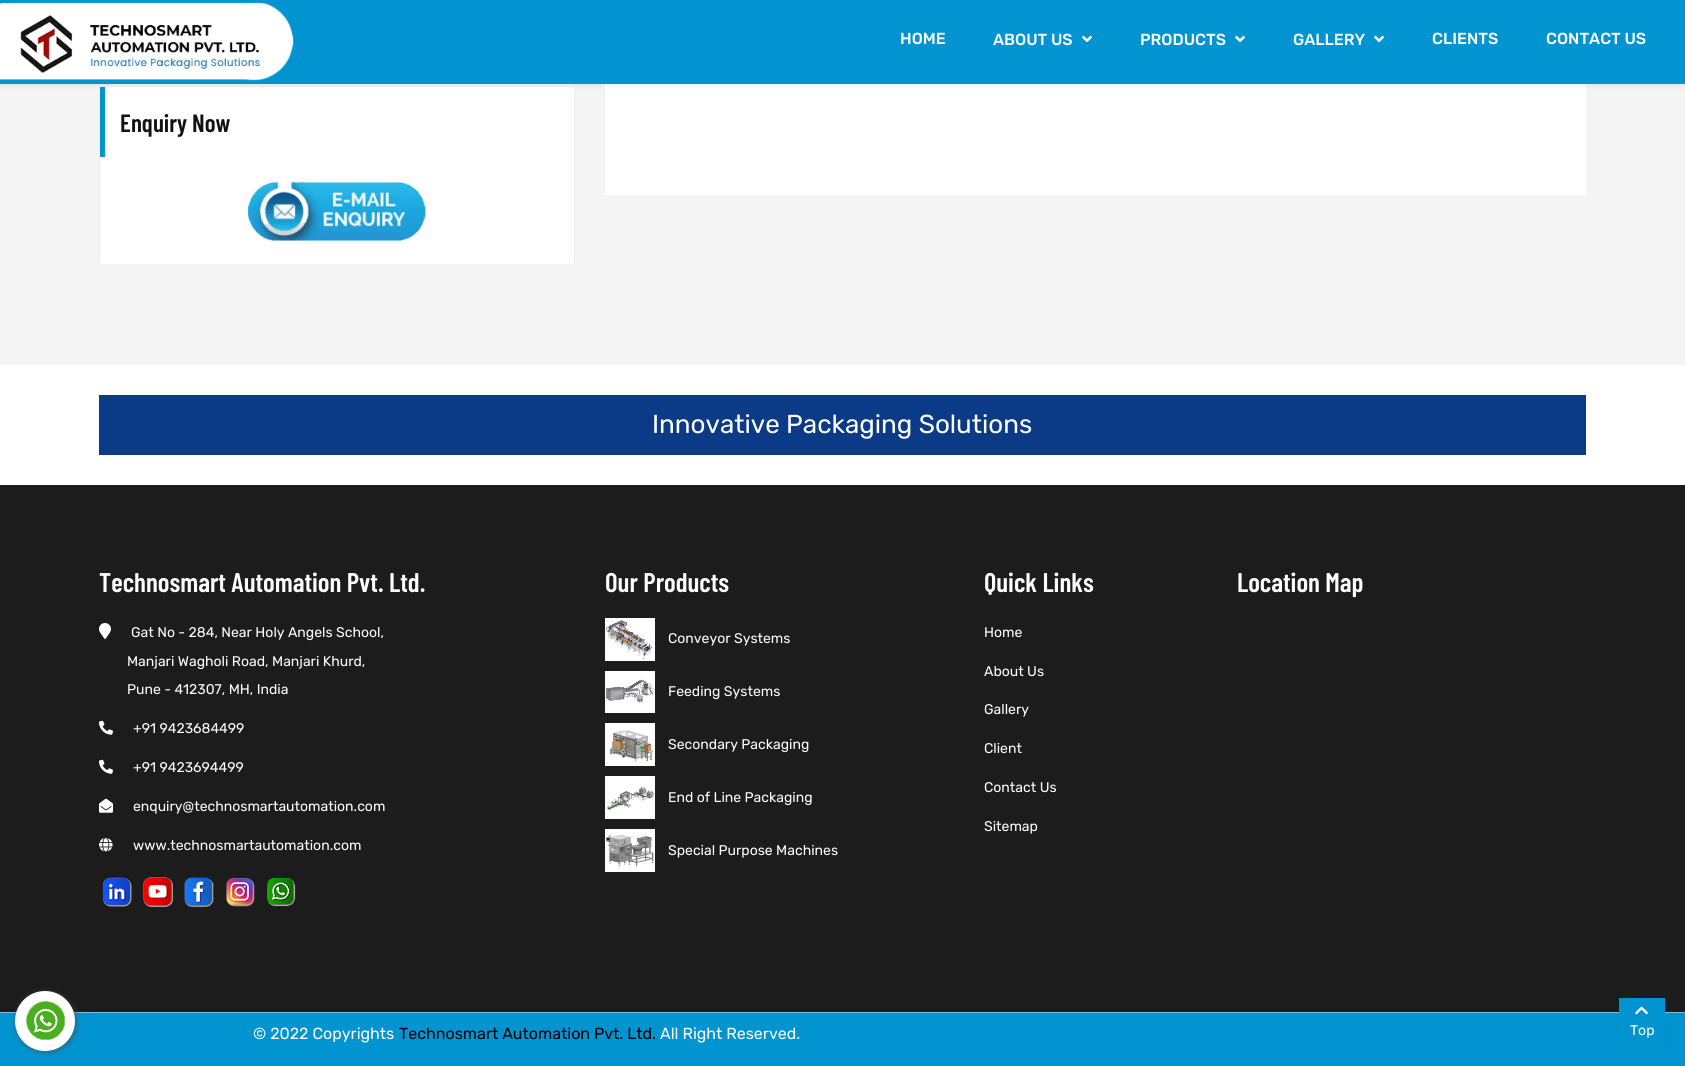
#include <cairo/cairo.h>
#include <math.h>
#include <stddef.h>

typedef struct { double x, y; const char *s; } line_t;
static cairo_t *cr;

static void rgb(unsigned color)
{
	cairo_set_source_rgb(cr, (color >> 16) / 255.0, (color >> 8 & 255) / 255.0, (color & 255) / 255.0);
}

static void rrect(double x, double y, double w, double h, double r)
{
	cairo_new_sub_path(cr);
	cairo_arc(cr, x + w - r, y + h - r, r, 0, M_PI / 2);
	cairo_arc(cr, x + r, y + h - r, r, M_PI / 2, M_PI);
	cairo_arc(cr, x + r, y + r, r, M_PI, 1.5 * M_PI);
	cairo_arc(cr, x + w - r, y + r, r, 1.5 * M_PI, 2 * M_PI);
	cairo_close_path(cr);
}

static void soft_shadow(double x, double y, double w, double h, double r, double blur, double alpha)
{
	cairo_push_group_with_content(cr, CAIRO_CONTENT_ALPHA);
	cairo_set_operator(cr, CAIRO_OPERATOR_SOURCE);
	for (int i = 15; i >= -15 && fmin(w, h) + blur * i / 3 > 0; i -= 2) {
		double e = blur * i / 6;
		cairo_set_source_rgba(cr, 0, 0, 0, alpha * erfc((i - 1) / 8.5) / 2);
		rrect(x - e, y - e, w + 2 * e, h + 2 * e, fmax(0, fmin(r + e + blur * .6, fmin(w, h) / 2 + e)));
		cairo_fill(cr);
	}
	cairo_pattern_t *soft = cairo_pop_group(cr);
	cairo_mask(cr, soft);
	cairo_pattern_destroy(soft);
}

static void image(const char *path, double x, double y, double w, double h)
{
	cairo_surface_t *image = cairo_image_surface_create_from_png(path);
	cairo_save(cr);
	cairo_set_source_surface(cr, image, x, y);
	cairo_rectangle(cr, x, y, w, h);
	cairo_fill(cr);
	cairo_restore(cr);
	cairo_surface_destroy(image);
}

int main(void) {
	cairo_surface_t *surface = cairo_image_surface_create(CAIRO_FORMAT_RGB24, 1685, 1066);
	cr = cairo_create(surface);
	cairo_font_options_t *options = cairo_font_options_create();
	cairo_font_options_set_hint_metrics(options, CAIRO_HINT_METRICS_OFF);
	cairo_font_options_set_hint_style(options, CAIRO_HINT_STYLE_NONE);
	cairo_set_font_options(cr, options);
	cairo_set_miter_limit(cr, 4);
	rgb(0xffffff);
	cairo_paint(cr);
	rgb(0xf4f4f4);
	cairo_rectangle(cr, 0, 84, 1685, 281);
	cairo_fill(cr);
	rgb(0xffffff);
	rrect(99.5, 86.5, 475, 178, 2.5);
	cairo_fill_preserve(cr);
	rgb(0xefefef);
	cairo_set_line_width(cr, 1);
	cairo_stroke(cr);
	rgb(0x0294d0);
	cairo_rectangle(cr, 100, 87, 5, 70);
	cairo_fill(cr);
	rgb(0xffffff);
	cairo_rectangle(cr, 605, 84, 981, 111);
	cairo_fill(cr);
	rgb(0x000000);
	soft_shadow(0, 0, 1685, 84, 0, 4, 0.1);
	rgb(0x0294d0);
	cairo_rectangle(cr, 0, 0, 1685, 84);
	cairo_fill(cr);
	image("img/1.png", 0, 2, 294, 79);
	image("img/2.png", 1082, 35, 10, 8);
	image("img/2.png", 1235, 35, 10, 8);
	image("img/2.png", 1374, 35, 10, 8);
	image("img/3.png", 248, 181, 178, 61);
	rgb(0x0b3b87);
	cairo_rectangle(cr, 99, 395, 1487, 60);
	cairo_fill(cr);
	rgb(0x1c1c1c);
	cairo_rectangle(cr, 0, 485, 1685, 527);
	cairo_fill(cr);
	image("img/4.png", 99, 623, 12, 16);
	image("img/5.png", 99, 720, 14, 15);
	image("img/5.png", 99, 759, 14, 15);
	image("img/6.png", 99, 798, 14, 15);
	image("img/7.png", 99, 838, 14, 14);
	image("img/8.png", 103, 877, 29, 30);
	image("img/9.png", 143, 877, 30, 30);
	image("img/10.png", 184, 877, 30, 30);
	image("img/11.png", 226, 878, 29, 29);
	image("img/12.png", 267, 878, 29, 29);
	image("img/13.png", 605, 618, 50, 43);
	image("img/14.png", 605, 671, 50, 42);
	image("img/15.png", 605, 723, 50, 43);
	image("img/16.png", 605, 776, 50, 43);
	image("img/17.png", 605, 829, 50, 43);
	rgb(0x0294d0);
	cairo_rectangle(cr, 0, 1013, 1685, 53);
	cairo_fill(cr);
	rgb(0x74c0e7);
	cairo_rectangle(cr, 0, 1012, 1685, 1);
	cairo_fill(cr);
	rgb(0x444444);
	soft_shadow(16, 992, 60, 60, 30, 3, 0.71);
	rgb(0xffffff);
	cairo_arc(cr, 45, 1021, 30, 0, 2 * M_PI);
	cairo_fill(cr);
	image("img/18.png", 26, 1001, 39, 39);
	rgb(0x000000);
	soft_shadow(1619, 998, 46, 48, 0, 5, 0.05);
	rgb(0x0294d0);
	cairo_rectangle(cr, 1619, 998, 46, 48);
	cairo_fill(cr);
	image("img/19.png", 1635, 1006, 13, 9);
	cairo_select_font_face(cr, "Rubik Medium", CAIRO_FONT_SLANT_NORMAL, CAIRO_FONT_WEIGHT_NORMAL);
	cairo_set_font_size(cr, 16);
	rgb(0xffffff);
	{
		static const line_t items[] = {
			{900, 44, "HOME"},
			{993, 45, "ABOUT US"},
			{1140, 45, "PRODUCTS"},
			{1293, 45, "GALLERY"},
			{1432, 44, "CLIENTS"},
			{1546, 44, "CONTACT US"},
		};
		for (size_t i = 0; i < sizeof items / sizeof *items; i++) {
			cairo_move_to(cr, items[i].x, items[i].y);
			cairo_show_text(cr, items[i].s);
		}
	}
	cairo_select_font_face(cr, "Barlow Condensed SemiBold", CAIRO_FONT_SLANT_NORMAL, CAIRO_FONT_WEIGHT_NORMAL);
	cairo_set_font_size(cr, 25);
	rgb(0x111111);
	cairo_move_to(cr, 120, 132);
	cairo_show_text(cr, "Enquiry Now");
	cairo_select_font_face(cr, "Rubik", CAIRO_FONT_SLANT_NORMAL, CAIRO_FONT_WEIGHT_NORMAL);
	cairo_set_font_size(cr, 26);
	rgb(0xffffff);
	cairo_move_to(cr, 652, 433);
	cairo_show_text(cr, "Innovative Packaging Solutions");
	cairo_select_font_face(cr, "Barlow Condensed SemiBold", CAIRO_FONT_SLANT_NORMAL, CAIRO_FONT_WEIGHT_NORMAL);
	cairo_set_font_size(cr, 27);
	cairo_move_to(cr, 99, 592);
	cairo_show_text(cr, "Technosmart Automation Pvt. Ltd.");
	cairo_select_font_face(cr, "Rubik", CAIRO_FONT_SLANT_NORMAL, CAIRO_FONT_WEIGHT_NORMAL);
	cairo_set_font_size(cr, 14);
	{
		static const line_t items[] = {
			{131, 637, "Gat No - 284, Near Holy Angels School,"},
			{127, 666, "Manjari Wagholi Road, Manjari Khurd,"},
			{127, 694, "Pune - 412307, MH, India"},
			{133, 733, "+91 9423684499"},
			{133, 772, "+91 9423694499"},
			{133, 811, "enquiry@technosmartautomation.com"},
			{133, 850, "www.technosmartautomation.com"},
		};
		for (size_t i = 0; i < sizeof items / sizeof *items; i++) {
			cairo_move_to(cr, items[i].x, items[i].y);
			cairo_show_text(cr, items[i].s);
		}
	}
	cairo_select_font_face(cr, "Barlow Condensed SemiBold", CAIRO_FONT_SLANT_NORMAL, CAIRO_FONT_WEIGHT_NORMAL);
	cairo_set_font_size(cr, 27);
	cairo_move_to(cr, 605, 592);
	cairo_show_text(cr, "Our Products");
	cairo_select_font_face(cr, "Rubik", CAIRO_FONT_SLANT_NORMAL, CAIRO_FONT_WEIGHT_NORMAL);
	cairo_set_font_size(cr, 14);
	{
		static const line_t items[] = {
			{668, 643, "Conveyor Systems"},
			{668, 696, "Feeding Systems"},
			{668, 749, "Secondary Packaging"},
			{668, 802, "End of Line Packaging"},
			{668, 855, "Special Purpose Machines"},
		};
		for (size_t i = 0; i < sizeof items / sizeof *items; i++) {
			cairo_move_to(cr, items[i].x, items[i].y);
			cairo_show_text(cr, items[i].s);
		}
	}
	cairo_select_font_face(cr, "Barlow Condensed SemiBold", CAIRO_FONT_SLANT_NORMAL, CAIRO_FONT_WEIGHT_NORMAL);
	cairo_set_font_size(cr, 27);
	cairo_move_to(cr, 984, 592);
	cairo_show_text(cr, "Quick Links");
	cairo_select_font_face(cr, "Rubik", CAIRO_FONT_SLANT_NORMAL, CAIRO_FONT_WEIGHT_NORMAL);
	cairo_set_font_size(cr, 14);
	{
		static const line_t items[] = {
			{984, 637, "Home"},
			{984, 676, "About Us"},
			{984, 714, "Gallery"},
			{984, 753, "Client"},
			{984, 792, "Contact Us"},
			{984, 831, "Sitemap"},
		};
		for (size_t i = 0; i < sizeof items / sizeof *items; i++) {
			cairo_move_to(cr, items[i].x, items[i].y);
			cairo_show_text(cr, items[i].s);
		}
	}
	cairo_select_font_face(cr, "Barlow Condensed SemiBold", CAIRO_FONT_SLANT_NORMAL, CAIRO_FONT_WEIGHT_NORMAL);
	cairo_set_font_size(cr, 27);
	cairo_move_to(cr, 1237, 592);
	cairo_show_text(cr, "Location Map");
	cairo_select_font_face(cr, "Rubik", CAIRO_FONT_SLANT_NORMAL, CAIRO_FONT_WEIGHT_NORMAL);
	cairo_set_font_size(cr, 16);
	cairo_move_to(cr, 253, 1039);
	cairo_show_text(cr, "© 2022 Copyrights");
	rgb(0x000000);
	cairo_move_to(cr, 399, 1039);
	cairo_show_text(cr, "Technosmart Automation Pvt. Ltd.");
	rgb(0xffffff);
	cairo_move_to(cr, 660, 1039);
	cairo_show_text(cr, "All Right Reserved.");
	cairo_set_font_size(cr, 14);
	cairo_move_to(cr, 1630, 1035);
	cairo_show_text(cr, "Top");
	cairo_surface_write_to_png(surface, "page.png");
	cairo_font_options_destroy(options);
	cairo_destroy(cr);
	cairo_surface_destroy(surface);
	return 0;
}
